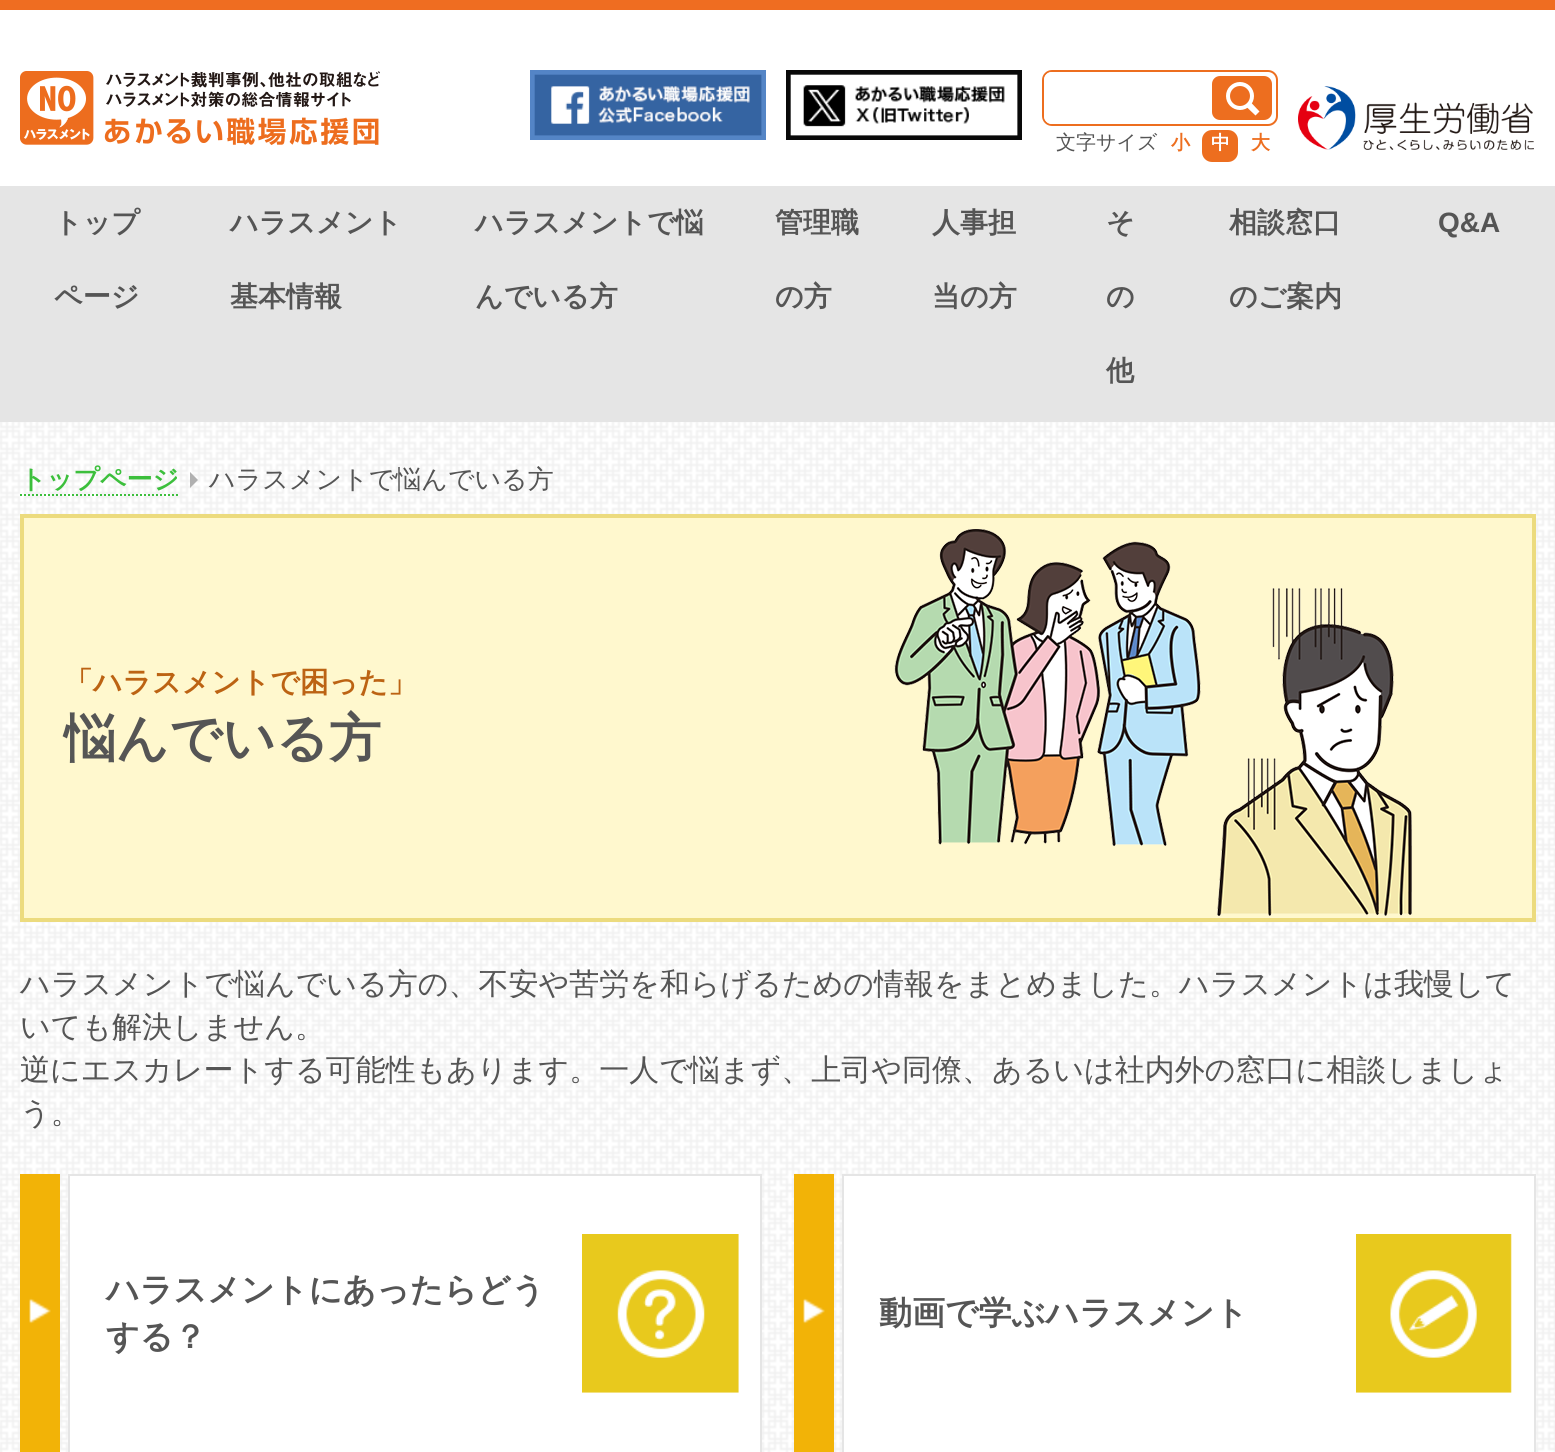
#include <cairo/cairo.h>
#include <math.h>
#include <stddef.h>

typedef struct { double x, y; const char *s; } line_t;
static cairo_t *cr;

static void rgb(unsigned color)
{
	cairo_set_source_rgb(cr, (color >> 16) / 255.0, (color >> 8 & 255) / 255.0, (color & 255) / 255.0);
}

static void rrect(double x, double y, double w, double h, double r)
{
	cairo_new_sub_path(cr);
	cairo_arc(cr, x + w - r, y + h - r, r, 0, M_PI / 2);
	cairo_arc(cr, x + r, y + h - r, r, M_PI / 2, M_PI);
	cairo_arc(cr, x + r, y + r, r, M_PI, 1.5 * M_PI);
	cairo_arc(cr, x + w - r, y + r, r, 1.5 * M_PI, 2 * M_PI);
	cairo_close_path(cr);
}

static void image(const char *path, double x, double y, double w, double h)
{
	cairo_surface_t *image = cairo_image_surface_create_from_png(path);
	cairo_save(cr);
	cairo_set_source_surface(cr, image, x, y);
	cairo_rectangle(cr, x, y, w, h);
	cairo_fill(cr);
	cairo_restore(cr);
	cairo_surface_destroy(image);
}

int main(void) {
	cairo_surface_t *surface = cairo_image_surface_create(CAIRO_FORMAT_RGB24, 1555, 1452);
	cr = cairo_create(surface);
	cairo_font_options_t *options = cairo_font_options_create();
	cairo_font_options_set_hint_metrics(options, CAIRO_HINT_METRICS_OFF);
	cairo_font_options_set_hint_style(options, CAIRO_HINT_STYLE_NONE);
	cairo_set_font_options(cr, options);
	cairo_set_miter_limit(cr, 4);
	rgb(0xef6d21);
	cairo_paint(cr);
	image("img/1.png", 0, 422, 1555, 1030);
	rgb(0xffffff);
	cairo_rectangle(cr, 0, 10, 1555, 176);
	cairo_fill(cr);
	image("img/2.png", 20, 71, 360, 74);
	image("img/3.png", 530, 70, 236, 70);
	image("img/4.png", 786, 70, 236, 70);
	rrect(1043, 71, 234, 54, 9);
	rgb(0xed6e1f);
	cairo_stroke(cr);
	rgb(0xffffff);
	cairo_new_path(cr);
	cairo_move_to(cr, 1052, 72);
	cairo_line_to(cr, 1066, 72);
	cairo_line_to(cr, 1066, 124);
	cairo_line_to(cr, 1052, 124);
	cairo_curve_to(cr, 1047.5, 124, 1044, 120.5, 1044, 116);
	cairo_line_to(cr, 1044, 80);
	cairo_curve_to(cr, 1044, 75.5, 1047.5, 72, 1052, 72);
	cairo_close_path(cr);
	cairo_fill(cr);
	rgb(0xed6e1f);
	rrect(1212, 76, 60, 44, 8);
	cairo_fill(cr);
	cairo_arc(cr, 1240, 96, 12, 0, 2 * M_PI);
	rgb(0xffffff);
	cairo_set_line_width(cr, 4);
	cairo_stroke(cr);
	cairo_new_path(cr);
	cairo_move_to(cr, 1245.5, 106);
	cairo_line_to(cr, 1250, 101.5);
	cairo_line_to(cr, 1259.5, 111.5);
	cairo_line_to(cr, 1255.5, 115.5);
	cairo_close_path(cr);
	cairo_fill(cr);
	rgb(0xed6e1f);
	rrect(1202, 130, 36, 32, 10);
	cairo_fill(cr);
	image("img/5.png", 1298, 86, 236, 64);
	rgb(0xe5e5e5);
	cairo_rectangle(cr, 0, 186, 1555, 236);
	cairo_fill(cr);
	cairo_new_path(cr);
	cairo_move_to(cr, 20, 495);
	cairo_line_to(cr, 180, 495);
	rgb(0x3cbf3c);
	cairo_set_line_width(cr, 2);
	cairo_set_dash(cr, (double[]){2, 2}, 2, 0);
	cairo_stroke(cr);
	rgb(0xb0b0b0);
	cairo_new_path(cr);
	cairo_move_to(cr, 190, 488);
	cairo_line_to(cr, 190, 472);
	cairo_line_to(cr, 198, 480);
	cairo_close_path(cr);
	cairo_fill(cr);
	rgb(0xfff8ce);
	cairo_rectangle(cr, 22, 516, 1512, 404);
	cairo_fill_preserve(cr);
	rgb(0xecdb7e);
	cairo_set_line_width(cr, 4);
	cairo_set_dash(cr, NULL, 0, 0);
	cairo_stroke(cr);
	image("img/6.png", 894, 529, 518, 387);
	image("img/7.png", 20, 1174, 40, 278);
	rgb(0xffffff);
	cairo_rectangle(cr, 69, 1175, 692, 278);
	cairo_fill_preserve(cr);
	rgb(0xe5e5e5);
	cairo_set_line_width(cr, 2);
	cairo_stroke(cr);
	image("img/8.png", 582, 1234, 157, 159);
	image("img/7.png", 794, 1174, 40, 278);
	rgb(0xffffff);
	cairo_rectangle(cr, 843, 1175, 692, 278);
	cairo_fill_preserve(cr);
	rgb(0xe5e5e5);
	cairo_stroke(cr);
	image("img/9.png", 1356, 1234, 156, 159);
	cairo_select_font_face(cr, "WenQuanYi Zen Hei Medium", CAIRO_FONT_SLANT_NORMAL, CAIRO_FONT_WEIGHT_NORMAL);
	cairo_set_font_size(cr, 20);
	rgb(0x555555);
	cairo_move_to(cr, 1056, 149);
	cairo_show_text(cr, "文字サイズ");
	cairo_select_font_face(cr, "WenQuanYi Zen Hei", CAIRO_FONT_SLANT_NORMAL, CAIRO_FONT_WEIGHT_BOLD);
	cairo_set_font_size(cr, 19);
	rgb(0xed6e1f);
	cairo_move_to(cr, 1171, 149);
	cairo_show_text(cr, "小");
	rgb(0xffffff);
	cairo_move_to(cr, 1211, 149);
	cairo_show_text(cr, "中");
	rgb(0xed6e1f);
	cairo_move_to(cr, 1251, 149);
	cairo_show_text(cr, "大");
	cairo_set_font_size(cr, 28);
	rgb(0x555555);
	{
		static const line_t items[] = {
			{54, 232, "トップ"},
			{54, 306, "ページ"},
			{230, 232, "ハラスメント"},
			{230, 306, "基本情報"},
			{475, 232, "ハラスメントで悩"},
			{475, 306, "んでいる方"},
			{775, 232, "管理職"},
			{775, 306, "の方"},
			{932, 232, "人事担"},
			{932, 306, "当の方"},
			{1106, 232, "そ"},
			{1106, 306, "の"},
			{1106, 380, "他"},
			{1229, 232, "相談窓口"},
			{1229, 306, "のご案内"},
		};
		for (size_t i = 0; i < sizeof items / sizeof *items; i++) {
			cairo_move_to(cr, items[i].x, items[i].y);
			cairo_show_text(cr, items[i].s);
		}
	}
	cairo_select_font_face(cr, "Liberation Sans", CAIRO_FONT_SLANT_NORMAL, CAIRO_FONT_WEIGHT_BOLD);
	cairo_move_to(cr, 1438, 232);
	cairo_show_text(cr, "Q&A");
	cairo_select_font_face(cr, "WenQuanYi Zen Hei", CAIRO_FONT_SLANT_NORMAL, CAIRO_FONT_WEIGHT_BOLD);
	cairo_set_font_size(cr, 26);
	rgb(0x3cbf3c);
	cairo_move_to(cr, 20, 488);
	cairo_show_text(cr, "トップページ");
	cairo_select_font_face(cr, "WenQuanYi Zen Hei Medium", CAIRO_FONT_SLANT_NORMAL, CAIRO_FONT_WEIGHT_NORMAL);
	rgb(0x555555);
	cairo_move_to(cr, 209, 488);
	cairo_show_text(cr, "ハラスメントで悩んでいる方");
	cairo_select_font_face(cr, "WenQuanYi Zen Hei", CAIRO_FONT_SLANT_NORMAL, CAIRO_FONT_WEIGHT_BOLD);
	cairo_set_font_size(cr, 28.9);
	rgb(0xbc6313);
	cairo_move_to(cr, 64, 692);
	cairo_show_text(cr, "「ハラスメントで困った」");
	cairo_set_font_size(cr, 52);
	rgb(0x555555);
	cairo_move_to(cr, 64, 756);
	cairo_show_text(cr, "悩んでいる方");
	cairo_select_font_face(cr, "WenQuanYi Zen Hei Medium", CAIRO_FONT_SLANT_NORMAL, CAIRO_FONT_WEIGHT_NORMAL);
	cairo_set_font_size(cr, 30);
	{
		static const line_t items[] = {
			{20, 994, "ハラスメントで悩んでいる方の、不安や苦労を和らげるための情報をまとめました。ハラスメントは我慢して"},
			{20, 1037, "いても解決しません。"},
			{20, 1080, "逆にエスカレートする可能性もあります。一人で悩まず、上司や同僚、あるいは社内外の窓口に相談しましょ"},
			{20, 1123, "う。"},
		};
		for (size_t i = 0; i < sizeof items / sizeof *items; i++) {
			cairo_move_to(cr, items[i].x, items[i].y);
			cairo_show_text(cr, items[i].s);
		}
	}
	cairo_select_font_face(cr, "WenQuanYi Zen Hei", CAIRO_FONT_SLANT_NORMAL, CAIRO_FONT_WEIGHT_BOLD);
	cairo_set_font_size(cr, 33);
	{
		static const line_t items[] = {
			{106, 1301, "ハラスメントにあったらどう"},
			{106, 1348, "する？"},
			{879, 1324, "動画で学ぶハラスメント"},
		};
		for (size_t i = 0; i < sizeof items / sizeof *items; i++) {
			cairo_move_to(cr, items[i].x, items[i].y);
			cairo_show_text(cr, items[i].s);
		}
	}
	cairo_surface_write_to_png(surface, "page.png");
	cairo_font_options_destroy(options);
	cairo_destroy(cr);
	cairo_surface_destroy(surface);
	return 0;
}
